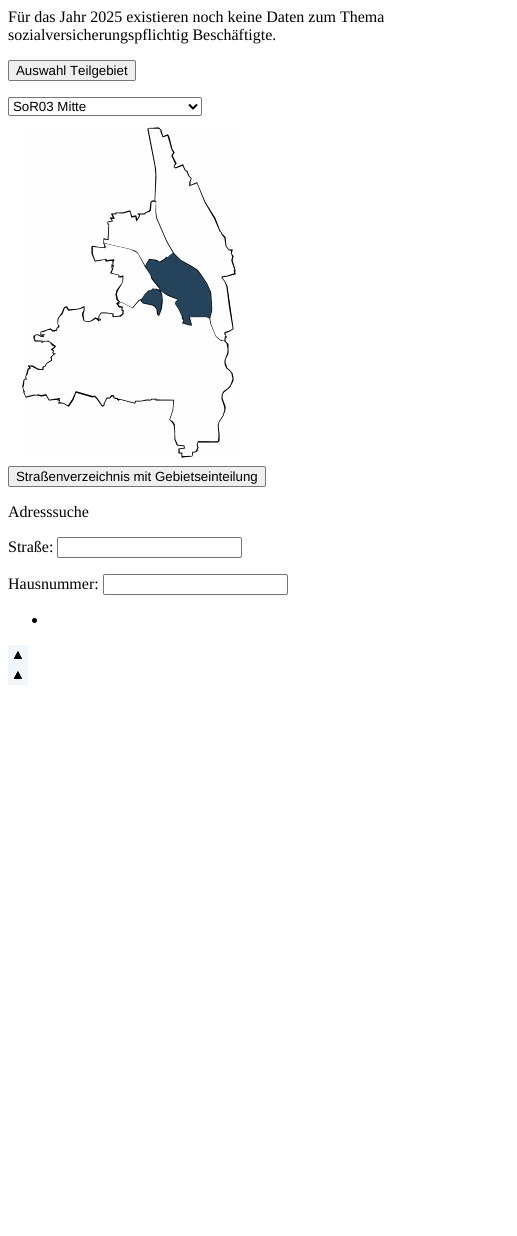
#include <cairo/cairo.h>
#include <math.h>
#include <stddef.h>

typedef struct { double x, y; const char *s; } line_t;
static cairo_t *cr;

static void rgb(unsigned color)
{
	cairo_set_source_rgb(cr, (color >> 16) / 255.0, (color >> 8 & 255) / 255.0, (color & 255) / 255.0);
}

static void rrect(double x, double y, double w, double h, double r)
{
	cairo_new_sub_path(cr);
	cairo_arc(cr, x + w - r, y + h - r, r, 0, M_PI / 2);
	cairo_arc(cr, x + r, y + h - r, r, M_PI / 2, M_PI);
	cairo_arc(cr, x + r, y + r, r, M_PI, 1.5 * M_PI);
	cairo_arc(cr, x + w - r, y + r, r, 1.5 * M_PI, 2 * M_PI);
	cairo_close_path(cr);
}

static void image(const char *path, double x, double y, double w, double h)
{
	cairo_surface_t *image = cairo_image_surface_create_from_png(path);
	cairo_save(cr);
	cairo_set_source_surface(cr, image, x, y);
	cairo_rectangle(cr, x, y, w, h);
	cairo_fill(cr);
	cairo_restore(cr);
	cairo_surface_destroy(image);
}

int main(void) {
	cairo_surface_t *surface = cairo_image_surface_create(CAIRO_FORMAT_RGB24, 517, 1236);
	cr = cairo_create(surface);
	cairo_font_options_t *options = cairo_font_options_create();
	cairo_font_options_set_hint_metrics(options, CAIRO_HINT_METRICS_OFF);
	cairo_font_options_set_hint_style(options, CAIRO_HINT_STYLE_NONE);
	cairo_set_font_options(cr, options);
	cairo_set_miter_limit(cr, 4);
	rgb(0xffffff);
	cairo_paint(cr);
	rgb(0xefefef);
	rrect(8.5, 60.5, 127, 20, 1.5);
	cairo_fill_preserve(cr);
	rgb(0x767676);
	cairo_set_line_width(cr, 1);
	cairo_stroke(cr);
	rrect(8.5, 97.5, 193, 18, 1.5);
	cairo_stroke(cr);
	cairo_new_path(cr);
	cairo_move_to(cr, 189, 104.5);
	cairo_line_to(cr, 193, 108.5);
	cairo_line_to(cr, 197, 104.5);
	rgb(0x000000);
	cairo_set_line_width(cr, 2);
	cairo_stroke(cr);
	image("img/1.png", 22, 127, 214, 331);
	rgb(0xefefef);
	rrect(8.5, 466.5, 257, 20, 1.5);
	cairo_fill_preserve(cr);
	rgb(0x767676);
	cairo_set_line_width(cr, 1);
	cairo_stroke(cr);
	rrect(57.5, 537.5, 184, 20, 1.5);
	cairo_stroke(cr);
	rrect(103.5, 574.5, 184, 20, 1.5);
	cairo_stroke(cr);
	rgb(0x000000);
	cairo_arc(cr, 34.5, 620.5, 2.5, 0, 2 * M_PI);
	cairo_fill(cr);
	image("img/2.png", 8, 645, 20, 20);
	image("img/2.png", 8, 665, 20, 20);
	cairo_select_font_face(cr, "Liberation Serif", CAIRO_FONT_SLANT_NORMAL, CAIRO_FONT_WEIGHT_NORMAL);
	cairo_set_font_size(cr, 16);
	cairo_move_to(cr, 8, 22);
	cairo_show_text(cr, "Für das Jahr 2025 existieren noch keine Daten zum Thema");
	cairo_move_to(cr, 8, 40);
	cairo_show_text(cr, "sozialversicherungspflichtig Beschäftigte.");
	cairo_select_font_face(cr, "Liberation Sans", CAIRO_FONT_SLANT_NORMAL, CAIRO_FONT_WEIGHT_NORMAL);
	cairo_set_font_size(cr, 13.3);
	{
		static const line_t items[] = {
			{16, 75, "Auswahl Teilgebiet"},
			{13, 111, "SoR03 Mitte"},
			{16, 481, "Straßenverzeichnis mit Gebietseinteilung"},
		};
		for (size_t i = 0; i < sizeof items / sizeof *items; i++) {
			cairo_move_to(cr, items[i].x, items[i].y);
			cairo_show_text(cr, items[i].s);
		}
	}
	cairo_select_font_face(cr, "Liberation Serif", CAIRO_FONT_SLANT_NORMAL, CAIRO_FONT_WEIGHT_NORMAL);
	cairo_set_font_size(cr, 16);
	{
		static const line_t items[] = {
			{8, 517, "Adresssuche"},
			{8, 552, "Straße:"},
			{8, 589, "Hausnummer:"},
		};
		for (size_t i = 0; i < sizeof items / sizeof *items; i++) {
			cairo_move_to(cr, items[i].x, items[i].y);
			cairo_show_text(cr, items[i].s);
		}
	}
	cairo_surface_write_to_png(surface, "page.png");
	cairo_font_options_destroy(options);
	cairo_destroy(cr);
	cairo_surface_destroy(surface);
	return 0;
}
